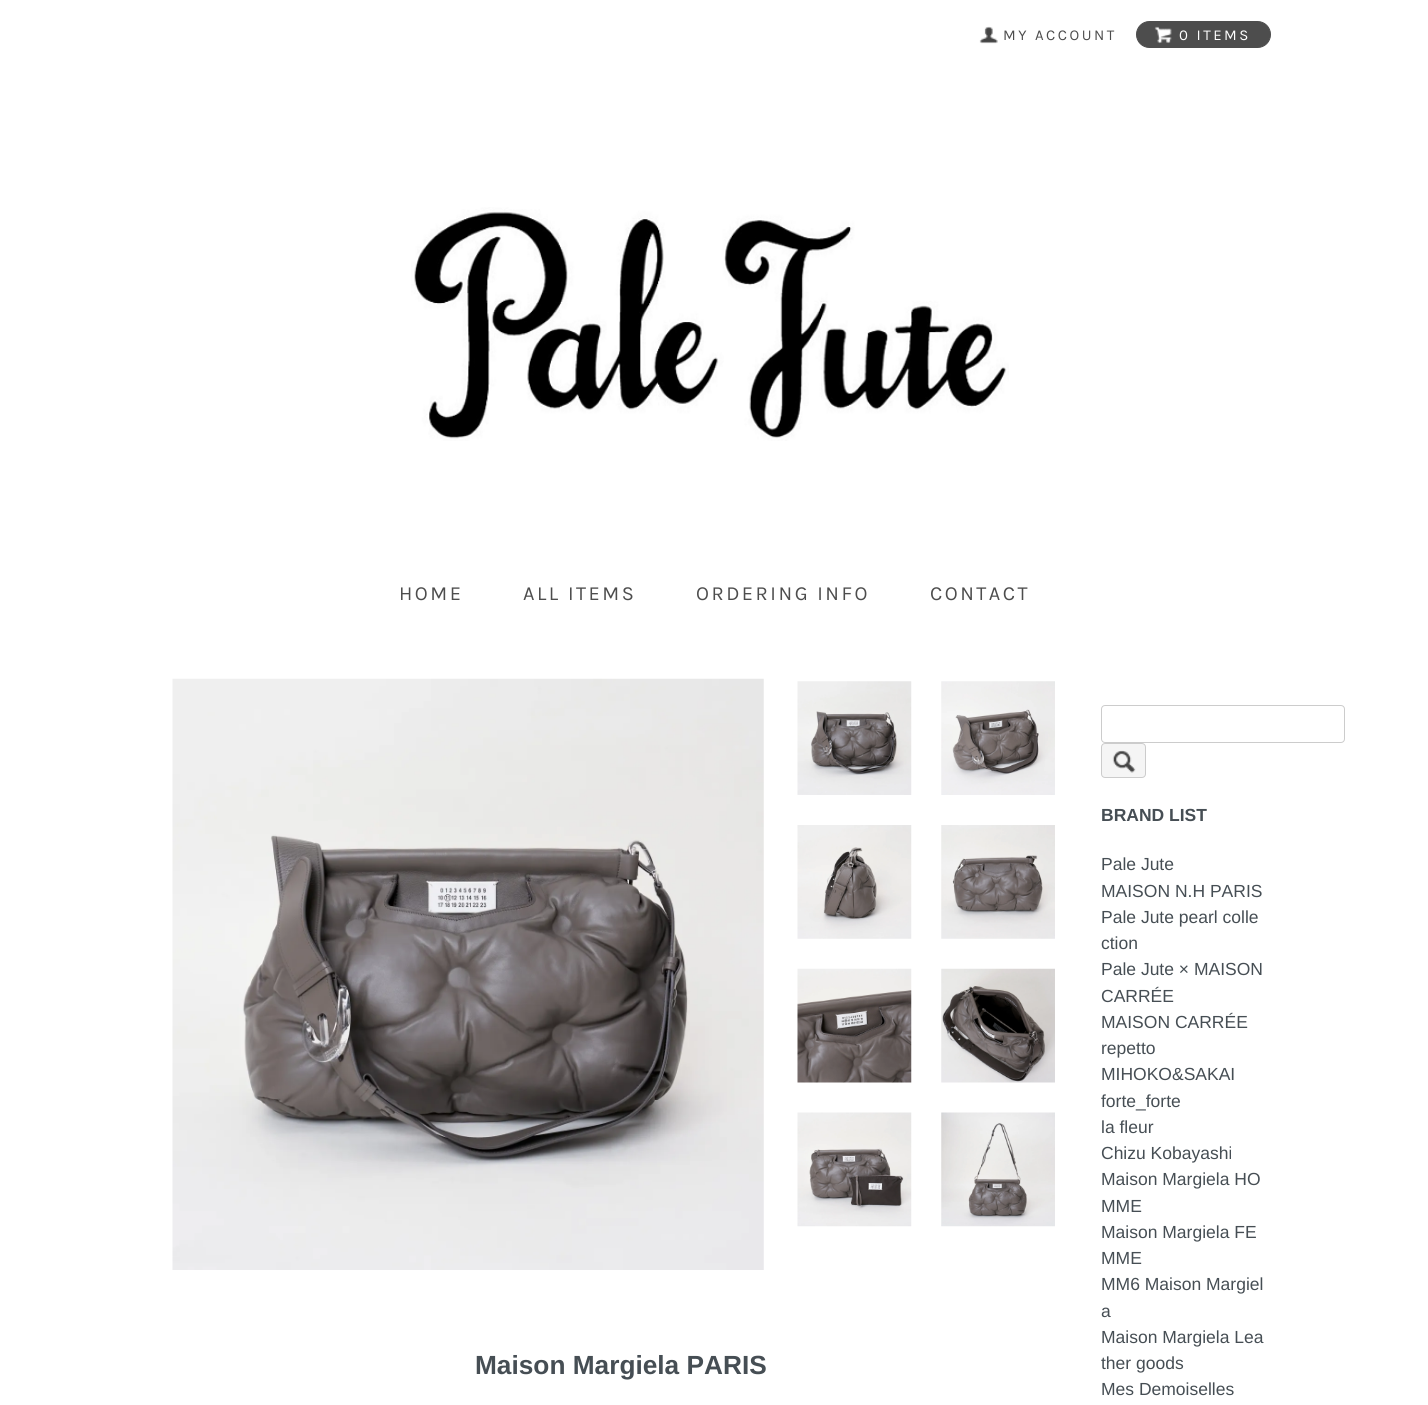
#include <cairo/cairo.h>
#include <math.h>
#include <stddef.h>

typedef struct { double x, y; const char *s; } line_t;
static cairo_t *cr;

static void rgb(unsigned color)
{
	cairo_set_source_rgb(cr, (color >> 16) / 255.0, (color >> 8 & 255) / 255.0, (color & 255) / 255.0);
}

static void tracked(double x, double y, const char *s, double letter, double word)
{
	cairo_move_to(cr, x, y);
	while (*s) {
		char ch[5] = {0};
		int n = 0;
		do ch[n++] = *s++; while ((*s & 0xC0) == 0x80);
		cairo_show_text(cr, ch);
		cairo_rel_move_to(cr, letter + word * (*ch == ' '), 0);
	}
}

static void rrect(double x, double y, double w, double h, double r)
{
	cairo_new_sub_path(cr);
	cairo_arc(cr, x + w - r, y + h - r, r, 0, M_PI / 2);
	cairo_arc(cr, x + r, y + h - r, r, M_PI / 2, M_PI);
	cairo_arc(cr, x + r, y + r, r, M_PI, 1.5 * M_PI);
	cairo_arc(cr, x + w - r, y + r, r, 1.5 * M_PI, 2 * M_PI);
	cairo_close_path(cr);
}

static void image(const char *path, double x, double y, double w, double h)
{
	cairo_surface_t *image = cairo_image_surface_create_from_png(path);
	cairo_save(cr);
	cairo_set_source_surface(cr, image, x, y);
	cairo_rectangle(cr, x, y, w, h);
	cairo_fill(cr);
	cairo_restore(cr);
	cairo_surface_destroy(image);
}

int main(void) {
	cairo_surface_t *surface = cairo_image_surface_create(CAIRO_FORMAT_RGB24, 1428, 1405);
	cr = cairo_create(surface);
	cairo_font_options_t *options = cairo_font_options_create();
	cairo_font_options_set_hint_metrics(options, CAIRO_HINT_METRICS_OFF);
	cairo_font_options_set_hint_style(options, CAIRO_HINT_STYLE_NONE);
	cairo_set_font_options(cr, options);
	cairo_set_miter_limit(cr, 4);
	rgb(0xffffff);
	cairo_paint(cr);
	image("img/1.png", 979, 26, 19, 18);
	rgb(0x4d4d4d);
	rrect(1136.5, 21.5, 134, 26, 13);
	cairo_fill_preserve(cr);
	cairo_set_line_width(cr, 1);
	cairo_stroke(cr);
	image("img/2.png", 1154, 26, 18, 18);
	image("img/3.png", 411, 207, 598, 234);
	image("img/4.png", 172, 678, 592, 592);
	image("img/5.png", 797, 681, 115, 114);
	image("img/6.png", 941, 681, 114, 114);
	image("img/7.png", 797, 825, 115, 114);
	image("img/8.png", 941, 825, 114, 114);
	image("img/9.png", 797, 968, 115, 115);
	image("img/10.png", 941, 968, 114, 115);
	image("img/11.png", 797, 1112, 115, 115);
	image("img/12.png", 941, 1112, 114, 115);
	rrect(1101.5, 705.5, 243, 37, 3.5);
	rgb(0xcccccc);
	cairo_stroke(cr);
	rgb(0xf5f5f5);
	rrect(1101.5, 743.5, 44, 34, 3.5);
	cairo_fill_preserve(cr);
	rgb(0xcccccc);
	cairo_stroke(cr);
	image("img/13.png", 1112, 750, 24, 23);
	cairo_select_font_face(cr, "Karla", CAIRO_FONT_SLANT_NORMAL, CAIRO_FONT_WEIGHT_NORMAL);
	cairo_set_font_size(cr, 15);
	rgb(0x4d4d4d);
	tracked(1003, 40, "MY ACCOUNT", 2.5, 0);
	rgb(0xffffff);
	tracked(1179, 40, "0 ITEMS", 2.5, 0);
	cairo_set_font_size(cr, 20);
	rgb(0x4d4d4d);
	{
		static const line_t items[] = {
			{399, 600, "HOME"},
			{523, 600, "ALL ITEMS"},
			{696, 600, "ORDERING INFO"},
			{930, 600, "CONTACT"},
		};
		for (size_t i = 0; i < sizeof items / sizeof *items; i++) {
			tracked(items[i].x, items[i].y, items[i].s, 2.5, 0);
		}
	}
	cairo_select_font_face(cr, "Liberation Sans", CAIRO_FONT_SLANT_NORMAL, CAIRO_FONT_WEIGHT_BOLD);
	cairo_set_font_size(cr, 26.25);
	rgb(0x464e54);
	cairo_move_to(cr, 475, 1374);
	cairo_show_text(cr, "Maison Margiela PARIS");
	cairo_set_font_size(cr, 17.5);
	cairo_move_to(cr, 1101, 821);
	cairo_show_text(cr, "BRAND LIST");
	cairo_select_font_face(cr, "Liberation Sans", CAIRO_FONT_SLANT_NORMAL, CAIRO_FONT_WEIGHT_NORMAL);
	{
		static const line_t items[] = {
			{1101, 870, "Pale Jute"},
			{1101, 897, "MAISON N.H PARIS"},
			{1101, 923, "Pale Jute pearl colle"},
			{1101, 949, "ction"},
			{1101, 975, "Pale Jute × MAISON"},
			{1101, 1002, "CARRÉE"},
			{1101, 1028, "MAISON CARRÉE"},
			{1101, 1054, "repetto"},
			{1101, 1080, "MIHOKO&SAKAI"},
			{1101, 1107, "forte_forte"},
			{1101, 1133, "la fleur"},
			{1101, 1159, "Chizu Kobayashi"},
			{1101, 1185, "Maison Margiela HO"},
			{1101, 1212, "MME"},
			{1101, 1238, "Maison Margiela FE"},
			{1101, 1264, "MME"},
			{1101, 1290, "MM6 Maison Margiel"},
			{1101, 1317, "a"},
			{1101, 1343, "Maison Margiela Lea"},
			{1101, 1369, "ther goods"},
			{1101, 1395, "Mes Demoiselles"},
		};
		for (size_t i = 0; i < sizeof items / sizeof *items; i++) {
			cairo_move_to(cr, items[i].x, items[i].y);
			cairo_show_text(cr, items[i].s);
		}
	}
	cairo_surface_write_to_png(surface, "page.png");
	cairo_font_options_destroy(options);
	cairo_destroy(cr);
	cairo_surface_destroy(surface);
	return 0;
}
